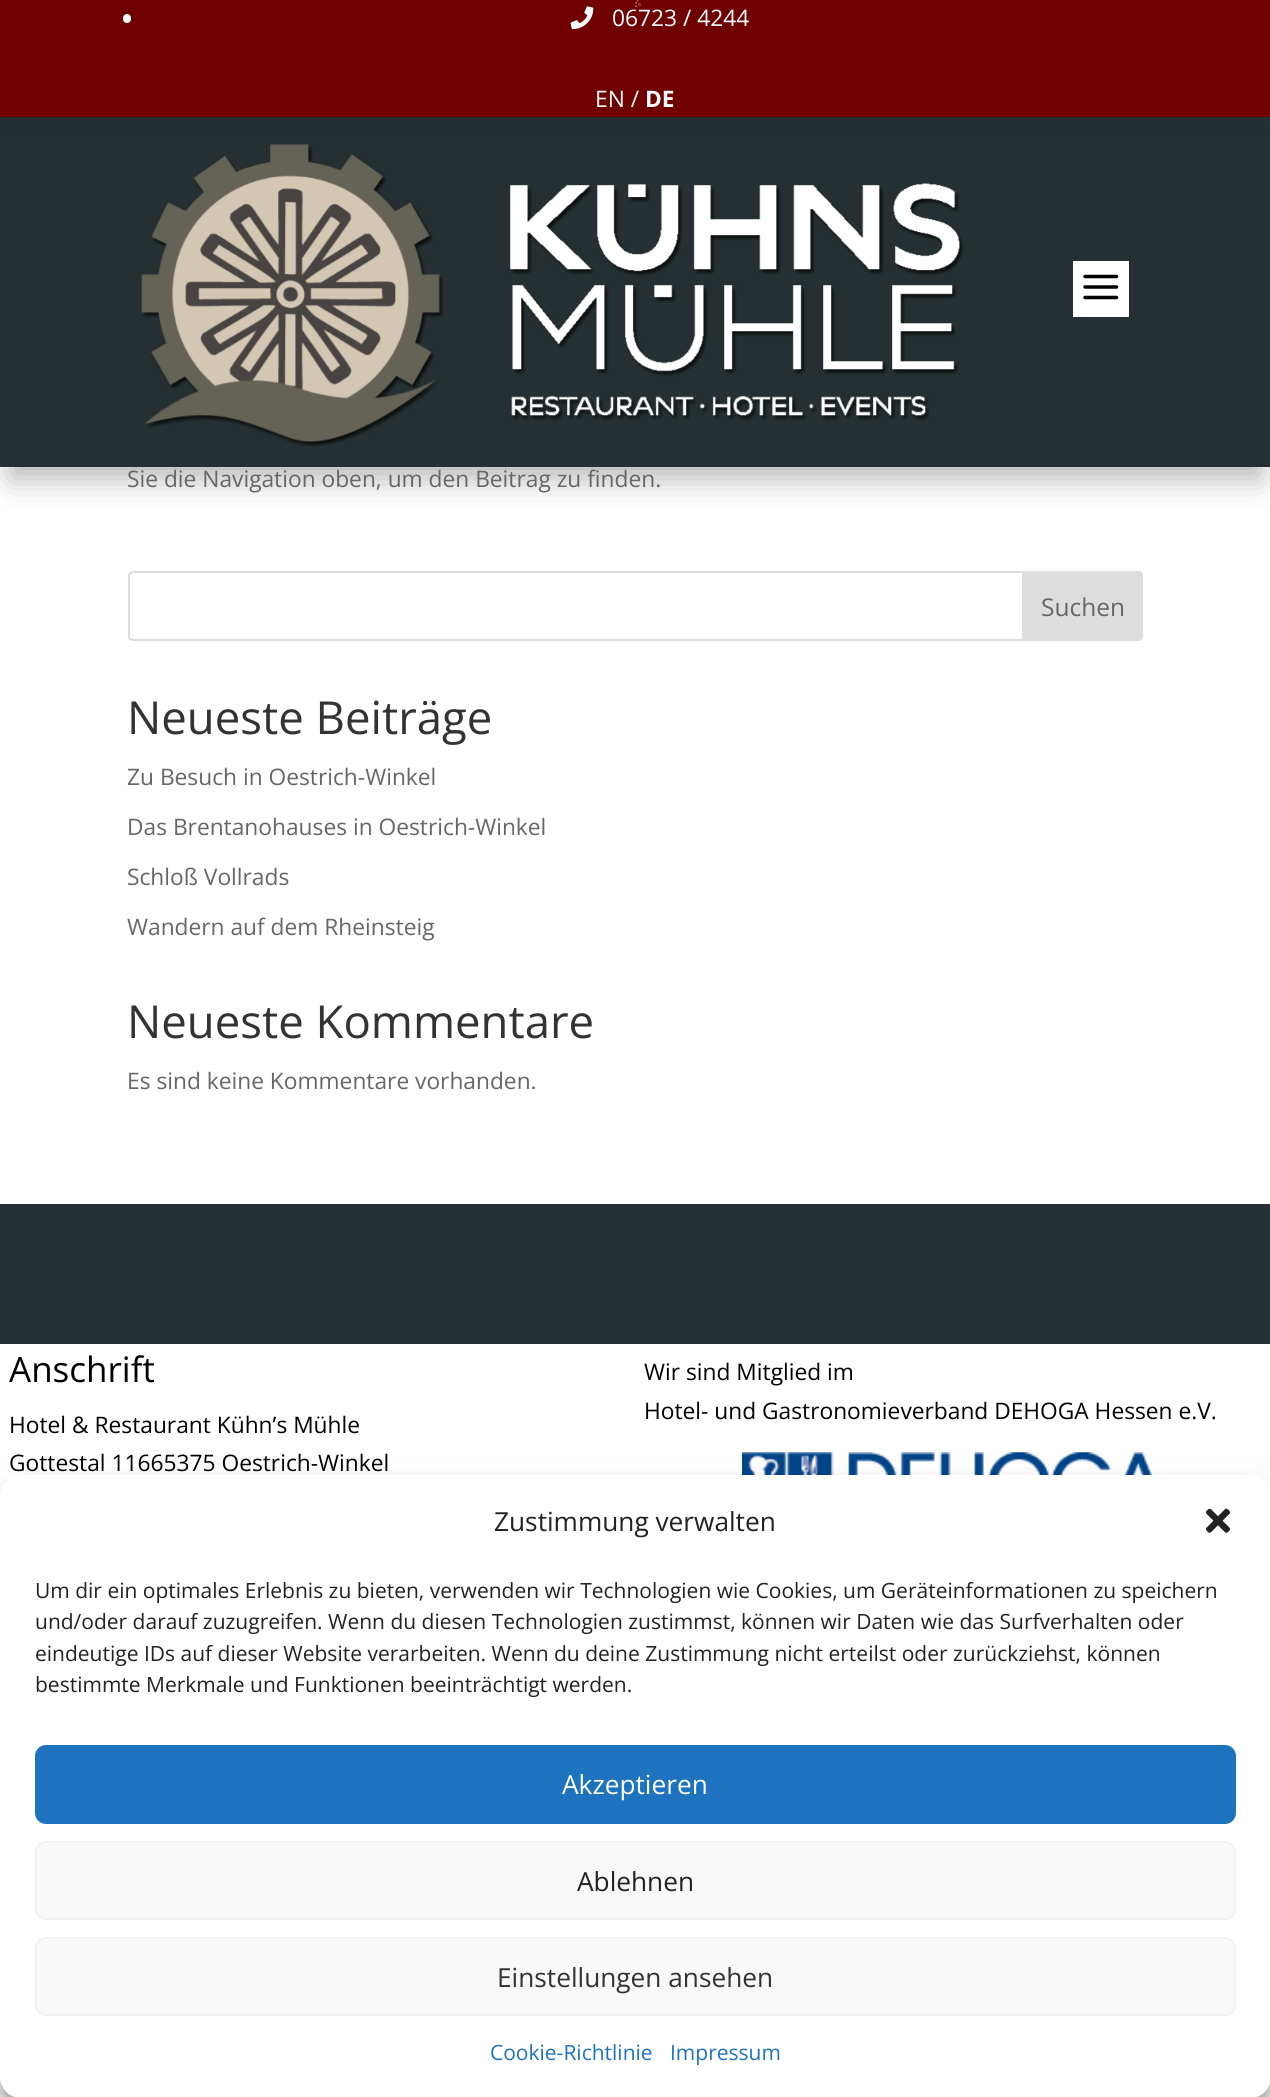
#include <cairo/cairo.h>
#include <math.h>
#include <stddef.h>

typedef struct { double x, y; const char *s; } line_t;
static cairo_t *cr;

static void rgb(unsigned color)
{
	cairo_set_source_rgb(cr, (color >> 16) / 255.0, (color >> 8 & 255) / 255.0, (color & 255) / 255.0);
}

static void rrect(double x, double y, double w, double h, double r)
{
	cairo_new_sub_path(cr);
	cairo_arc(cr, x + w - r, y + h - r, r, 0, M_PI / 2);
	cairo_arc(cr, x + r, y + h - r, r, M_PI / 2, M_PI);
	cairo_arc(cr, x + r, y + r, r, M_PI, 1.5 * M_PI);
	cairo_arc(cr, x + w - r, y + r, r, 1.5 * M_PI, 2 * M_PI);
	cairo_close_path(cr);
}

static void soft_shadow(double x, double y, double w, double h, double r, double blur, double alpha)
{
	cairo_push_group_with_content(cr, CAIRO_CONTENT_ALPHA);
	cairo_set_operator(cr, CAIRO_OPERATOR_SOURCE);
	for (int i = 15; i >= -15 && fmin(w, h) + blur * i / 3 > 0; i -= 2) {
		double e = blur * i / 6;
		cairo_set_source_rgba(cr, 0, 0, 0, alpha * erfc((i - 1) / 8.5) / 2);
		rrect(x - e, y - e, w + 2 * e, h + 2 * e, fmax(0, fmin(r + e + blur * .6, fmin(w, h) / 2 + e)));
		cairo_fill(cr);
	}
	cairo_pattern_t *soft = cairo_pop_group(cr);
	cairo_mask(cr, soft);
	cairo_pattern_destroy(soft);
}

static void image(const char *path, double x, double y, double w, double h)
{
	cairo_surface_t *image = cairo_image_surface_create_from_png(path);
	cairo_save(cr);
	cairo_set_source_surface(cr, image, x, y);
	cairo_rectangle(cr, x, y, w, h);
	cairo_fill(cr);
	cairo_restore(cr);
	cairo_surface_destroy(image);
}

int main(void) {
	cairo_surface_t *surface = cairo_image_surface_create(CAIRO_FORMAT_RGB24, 1270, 2097);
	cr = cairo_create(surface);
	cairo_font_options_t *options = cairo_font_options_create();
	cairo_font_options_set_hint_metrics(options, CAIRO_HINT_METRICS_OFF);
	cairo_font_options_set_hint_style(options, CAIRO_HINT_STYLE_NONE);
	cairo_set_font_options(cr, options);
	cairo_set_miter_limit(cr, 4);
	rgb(0x263032);
	cairo_paint(cr);
	rgb(0x700000);
	cairo_rectangle(cr, 0, 0, 1270, 117);
	cairo_fill(cr);
	image("img/1.png", 635, 1, 2, 3);
	image("img/2.png", 637, 0, 2, 2);
	image("img/3.png", 635, 5, 3, 2);
	rgb(0x8d3333);
	cairo_rectangle(cr, 638, 3, 3, 3);
	cairo_fill(cr);
	rgb(0xffffff);
	rrect(123, 14, 8, 9, 4);
	cairo_fill(cr);
	image("img/4.png", 570, 6, 24, 24);
	cairo_rectangle(cr, 0, 467, 1270, 737);
	cairo_fill(cr);
	rgb(0x000000);
	soft_shadow(11, 149, 1249, 329, 0, 16, 0.3);
	rgb(0x263032);
	cairo_rectangle(cr, 0, 134, 1270, 333);
	cairo_fill(cr);
	image("img/5.png", 141, 144, 823, 303);
	rgb(0xffffff);
	cairo_rectangle(cr, 1073, 261, 56, 56);
	cairo_fill(cr);
	image("img/6.png", 1083, 274, 36, 26);
	rrect(129, 572, 1013, 68, 4);
	rgb(0xdddddd);
	cairo_stroke(cr);
	cairo_new_path(cr);
	cairo_move_to(cr, 1023, 572);
	cairo_line_to(cr, 1138, 572);
	cairo_curve_to(cr, 1140, 572, 1142, 574, 1142, 576);
	cairo_line_to(cr, 1142, 636);
	cairo_curve_to(cr, 1142, 638, 1140, 640, 1138, 640);
	cairo_line_to(cr, 1023, 640);
	cairo_close_path(cr);
	cairo_fill_preserve(cr);
	cairo_stroke(cr);
	rgb(0xffffff);
	cairo_rectangle(cr, 0, 1344, 635, 152);
	cairo_fill(cr);
	cairo_rectangle(cr, 635, 1344, 635, 146);
	cairo_fill(cr);
	image("img/7.png", 742, 1452, 410, 23);
	cairo_rectangle(cr, 0, 2077, 15, 20);
	cairo_fill(cr);
	cairo_rectangle(cr, 1256, 2083, 14, 14);
	cairo_fill(cr);
	rgb(0x000000);
	soft_shadow(0, 1486, 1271, 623, 21, 5, 0.23);
	soft_shadow(0, 1493, 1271, 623, 21, 17.5, 0.19);
	rgb(0xffffff);
	rrect(0, 1475, 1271, 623, 21);
	cairo_fill(cr);
	image("img/8.png", 1206, 1508, 24, 25);
	rgb(0x1e73be);
	rrect(36, 1746, 1199, 77, 10);
	cairo_fill_preserve(cr);
	cairo_stroke(cr);
	rgb(0xf9f9f9);
	rrect(36, 1842, 1199, 77, 10);
	cairo_fill_preserve(cr);
	rgb(0xf2f2f2);
	cairo_stroke(cr);
	rgb(0xf9f9f9);
	rrect(36, 1938, 1199, 77, 10);
	cairo_fill_preserve(cr);
	rgb(0xf2f2f2);
	cairo_stroke(cr);
	cairo_select_font_face(cr, "Open Sans", CAIRO_FONT_SLANT_NORMAL, CAIRO_FONT_WEIGHT_NORMAL);
	cairo_set_font_size(cr, 22.75);
	rgb(0xffffff);
	cairo_move_to(cr, 612, 26);
	cairo_show_text(cr, "06723 / 4244");
	cairo_move_to(cr, 595, 107);
	cairo_show_text(cr, "EN /");
	cairo_select_font_face(cr, "Open Sans", CAIRO_FONT_SLANT_NORMAL, CAIRO_FONT_WEIGHT_BOLD);
	cairo_move_to(cr, 645, 107);
	cairo_show_text(cr, "DE");
	cairo_select_font_face(cr, "Open Sans", CAIRO_FONT_SLANT_NORMAL, CAIRO_FONT_WEIGHT_NORMAL);
	rgb(0x666666);
	cairo_move_to(cr, 127, 487);
	cairo_show_text(cr, "Sie die Navigation oben, um den Beitrag zu finden.");
	cairo_set_font_size(cr, 24.5);
	cairo_move_to(cr, 1041, 616);
	cairo_show_text(cr, "Suchen");
	cairo_set_font_size(cr, 45.5);
	rgb(0x333333);
	cairo_move_to(cr, 127, 734);
	cairo_show_text(cr, "Neueste Beiträge");
	cairo_set_font_size(cr, 22.75);
	rgb(0x666666);
	{
		static const line_t items[] = {
			{127, 785, "Zu Besuch in Oestrich-Winkel"},
			{127, 835, "Das Brentanohauses in Oestrich-Winkel"},
			{127, 885, "Schloß Vollrads"},
			{127, 935, "Wandern auf dem Rheinsteig"},
		};
		for (size_t i = 0; i < sizeof items / sizeof *items; i++) {
			cairo_move_to(cr, items[i].x, items[i].y);
			cairo_show_text(cr, items[i].s);
		}
	}
	cairo_set_font_size(cr, 45.5);
	rgb(0x333333);
	cairo_move_to(cr, 127, 1038);
	cairo_show_text(cr, "Neueste Kommentare");
	cairo_set_font_size(cr, 22.75);
	rgb(0x666666);
	cairo_move_to(cr, 127, 1089);
	cairo_show_text(cr, "Es sind keine Kommentare vorhanden.");
	cairo_set_font_size(cr, 35);
	rgb(0x000000);
	cairo_move_to(cr, 9, 1382);
	cairo_show_text(cr, "Anschrift");
	cairo_set_font_size(cr, 22.75);
	{
		static const line_t items[] = {
			{9, 1433, "Hotel & Restaurant Kühn’s Mühle"},
			{9, 1471, "Gottestal 11665375 Oestrich-Winkel"},
			{644, 1380, "Wir sind Mitglied im"},
			{644, 1419, "Hotel- und Gastronomieverband DEHOGA Hessen e.V."},
		};
		for (size_t i = 0; i < sizeof items / sizeof *items; i++) {
			cairo_move_to(cr, items[i].x, items[i].y);
			cairo_show_text(cr, items[i].s);
		}
	}
	cairo_set_font_size(cr, 26.25);
	rgb(0x222222);
	cairo_move_to(cr, 494, 1531);
	cairo_show_text(cr, "Zustimmung verwalten");
	cairo_set_font_size(cr, 21);
	{
		static const line_t items[] = {
			{35, 1598, "Um dir ein optimales Erlebnis zu bieten, verwenden wir Technologien wie Cookies, um Geräteinformationen zu speichern"},
			{35, 1629, "und/oder darauf zuzugreifen. Wenn du diesen Technologien zustimmst, können wir Daten wie das Surfverhalten oder"},
			{35, 1661, "eindeutige IDs auf dieser Website verarbeiten. Wenn du deine Zustimmung nicht erteilst oder zurückziehst, können"},
			{35, 1692, "bestimmte Merkmale und Funktionen beeinträchtigt werden."},
		};
		for (size_t i = 0; i < sizeof items / sizeof *items; i++) {
			cairo_move_to(cr, items[i].x, items[i].y);
			cairo_show_text(cr, items[i].s);
		}
	}
	cairo_set_font_size(cr, 26.25);
	rgb(0xffffff);
	cairo_move_to(cr, 562, 1794);
	cairo_show_text(cr, "Akzeptieren");
	rgb(0x222222);
	cairo_move_to(cr, 577, 1891);
	cairo_show_text(cr, "Ablehnen");
	rgb(0x333333);
	cairo_move_to(cr, 497, 1987);
	cairo_show_text(cr, "Einstellungen ansehen");
	cairo_set_font_size(cr, 21);
	rgb(0x1e73be);
	cairo_move_to(cr, 490, 2060);
	cairo_show_text(cr, "Cookie-Richtlinie");
	cairo_move_to(cr, 670, 2060);
	cairo_show_text(cr, "Impressum");
	cairo_surface_write_to_png(surface, "page.png");
	cairo_font_options_destroy(options);
	cairo_destroy(cr);
	cairo_surface_destroy(surface);
	return 0;
}
